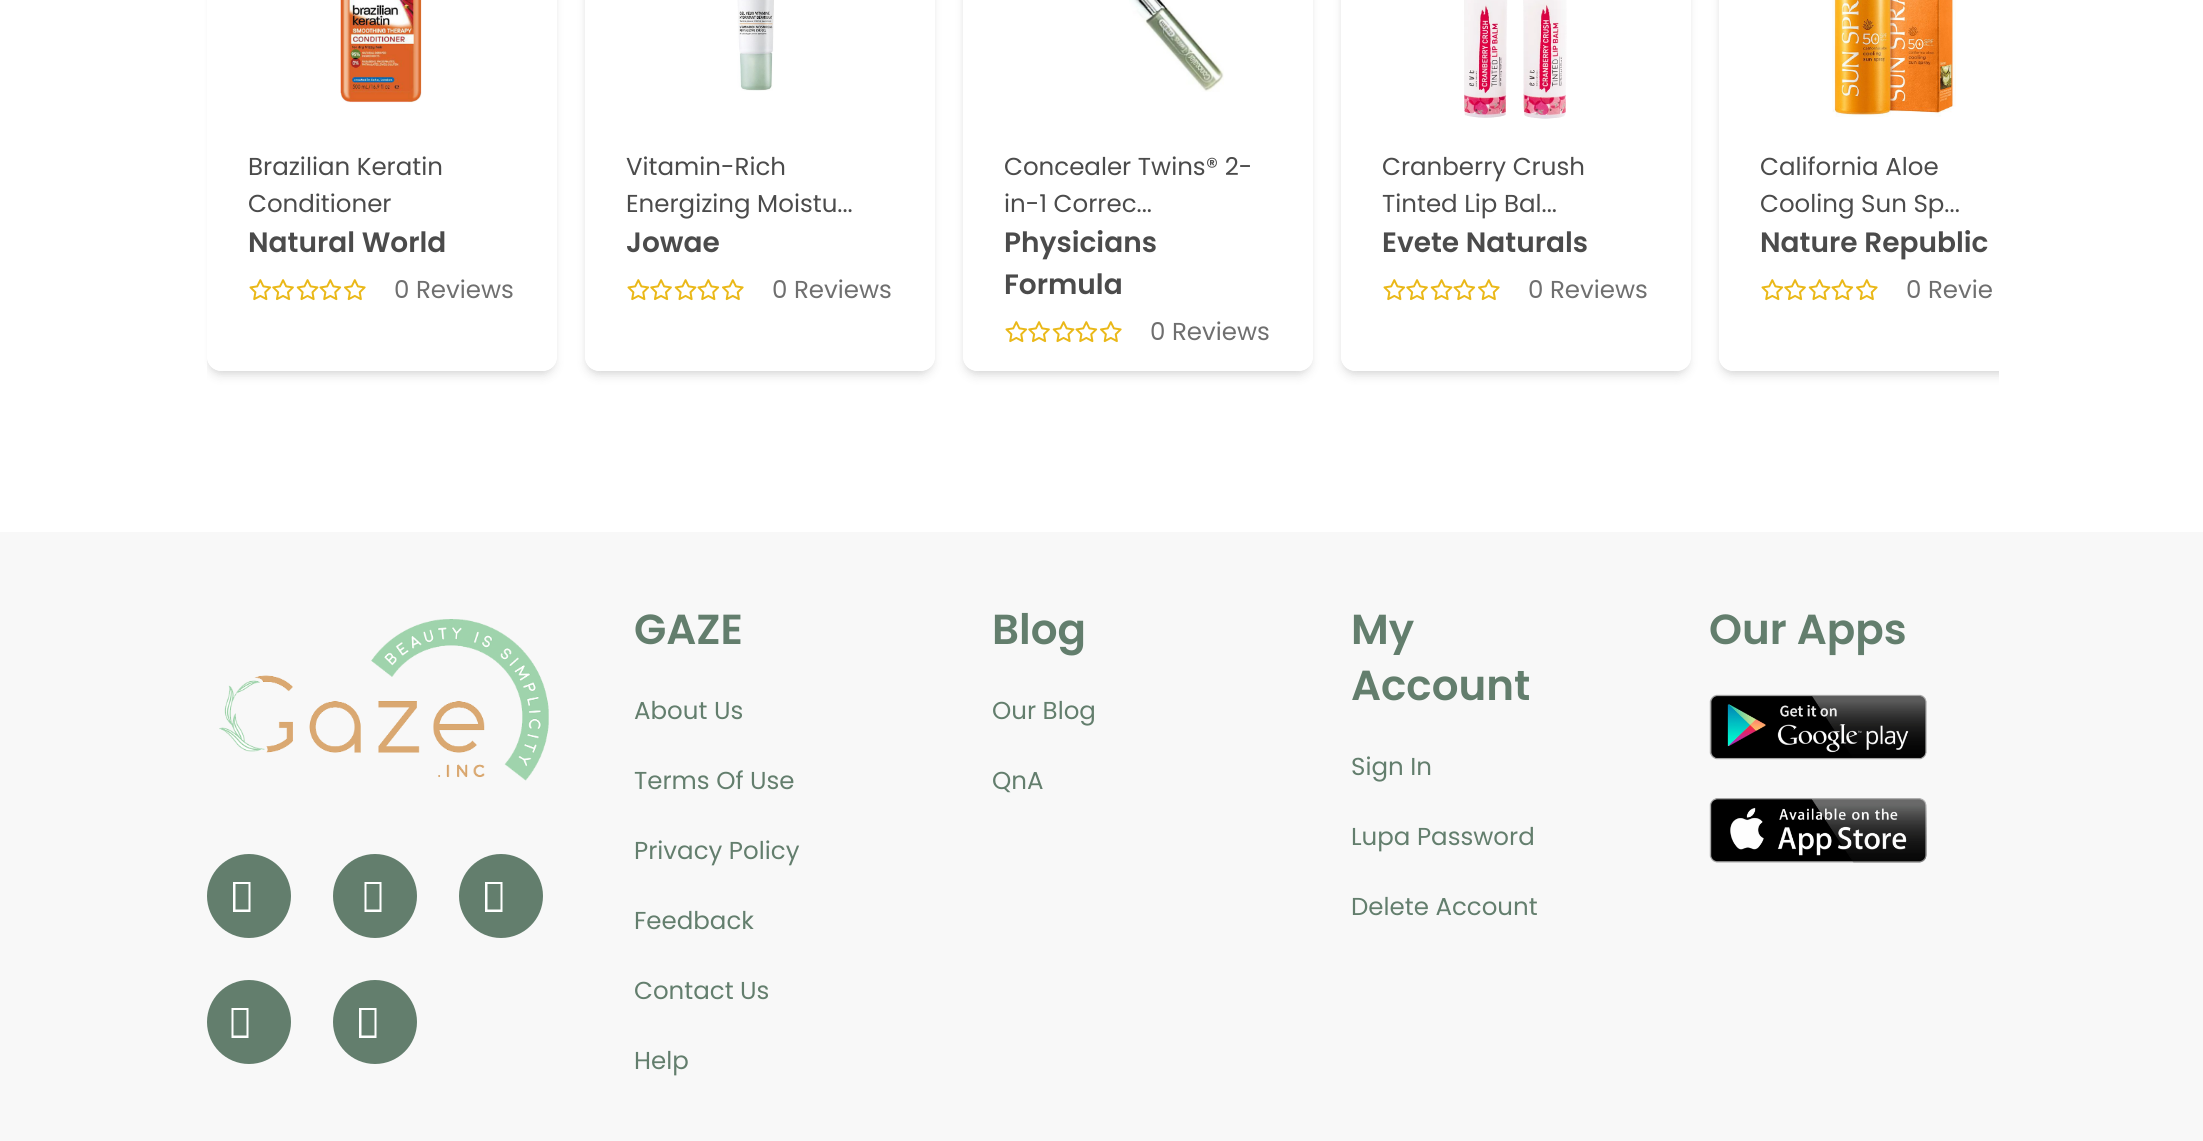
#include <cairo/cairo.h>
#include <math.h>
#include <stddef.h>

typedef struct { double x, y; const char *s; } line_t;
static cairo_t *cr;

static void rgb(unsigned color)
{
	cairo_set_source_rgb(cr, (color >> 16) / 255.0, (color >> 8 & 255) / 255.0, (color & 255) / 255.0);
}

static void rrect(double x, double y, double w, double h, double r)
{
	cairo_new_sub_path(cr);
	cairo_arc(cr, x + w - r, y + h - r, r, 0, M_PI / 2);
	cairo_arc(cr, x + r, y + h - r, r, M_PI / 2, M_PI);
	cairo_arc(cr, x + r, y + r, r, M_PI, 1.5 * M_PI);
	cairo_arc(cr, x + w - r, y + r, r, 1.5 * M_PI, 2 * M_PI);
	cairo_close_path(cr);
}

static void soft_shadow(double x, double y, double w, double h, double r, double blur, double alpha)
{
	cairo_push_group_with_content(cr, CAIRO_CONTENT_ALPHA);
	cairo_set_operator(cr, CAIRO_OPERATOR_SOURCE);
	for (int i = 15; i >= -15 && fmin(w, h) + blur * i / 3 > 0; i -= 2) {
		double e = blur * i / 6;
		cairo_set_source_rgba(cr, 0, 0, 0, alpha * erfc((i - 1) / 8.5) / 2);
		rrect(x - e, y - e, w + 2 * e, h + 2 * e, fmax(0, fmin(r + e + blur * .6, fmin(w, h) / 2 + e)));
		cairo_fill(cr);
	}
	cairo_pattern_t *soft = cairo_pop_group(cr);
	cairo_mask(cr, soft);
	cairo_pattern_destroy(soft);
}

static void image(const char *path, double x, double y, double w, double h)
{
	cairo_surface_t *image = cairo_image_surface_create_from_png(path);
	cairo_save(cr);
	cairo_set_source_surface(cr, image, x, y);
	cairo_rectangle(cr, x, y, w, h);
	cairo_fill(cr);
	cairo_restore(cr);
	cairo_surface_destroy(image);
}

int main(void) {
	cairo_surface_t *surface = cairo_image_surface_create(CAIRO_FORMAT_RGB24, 2203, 1141);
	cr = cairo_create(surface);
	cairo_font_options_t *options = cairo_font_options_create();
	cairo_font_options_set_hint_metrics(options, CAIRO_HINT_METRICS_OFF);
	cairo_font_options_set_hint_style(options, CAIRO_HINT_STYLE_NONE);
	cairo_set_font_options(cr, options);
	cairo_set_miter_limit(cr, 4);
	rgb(0xffffff);
	cairo_paint(cr);
	cairo_save(cr);
	cairo_set_fill_rule(cr, CAIRO_FILL_RULE_EVEN_ODD);
	cairo_new_path(cr);
	cairo_move_to(cr, 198, 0);
	cairo_line_to(cr, 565, 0);
	cairo_line_to(cr, 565, 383);
	cairo_line_to(cr, 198, 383);
	cairo_close_path(cr);
	cairo_move_to(cr, 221, -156);
	cairo_line_to(cr, 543, -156);
	cairo_curve_to(cr, 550.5, -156, 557, -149.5, 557, -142);
	cairo_line_to(cr, 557, 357);
	cairo_curve_to(cr, 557, 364.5, 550.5, 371, 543, 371);
	cairo_line_to(cr, 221, 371);
	cairo_curve_to(cr, 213.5, 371, 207, 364.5, 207, 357);
	cairo_line_to(cr, 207, -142);
	cairo_curve_to(cr, 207, -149.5, 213.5, -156, 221, -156);
	cairo_close_path(cr);
	cairo_clip(cr);
	rgb(0x000000);
	soft_shadow(210, -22, 343, 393, 11, 3.5, 0.1);
	cairo_restore(cr);
	cairo_save(cr);
	cairo_rectangle(cr, 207, 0, 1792, 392);
	cairo_clip(cr);
	cairo_set_fill_rule(cr, CAIRO_FILL_RULE_EVEN_ODD);
	cairo_new_path(cr);
	cairo_move_to(cr, 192, 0);
	cairo_line_to(cr, 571, 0);
	cairo_line_to(cr, 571, 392);
	cairo_line_to(cr, 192, 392);
	cairo_close_path(cr);
	cairo_move_to(cr, 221, -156);
	cairo_line_to(cr, 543, -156);
	cairo_curve_to(cr, 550.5, -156, 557, -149.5, 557, -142);
	cairo_line_to(cr, 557, 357);
	cairo_curve_to(cr, 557, 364.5, 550.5, 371, 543, 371);
	cairo_line_to(cr, 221, 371);
	cairo_curve_to(cr, 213.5, 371, 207, 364.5, 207, 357);
	cairo_line_to(cr, 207, -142);
	cairo_curve_to(cr, 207, -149.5, 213.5, -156, 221, -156);
	cairo_close_path(cr);
	cairo_clip(cr);
	rgb(0x000000);
	soft_shadow(208, -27, 347, 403, 12, 5, 0.1);
	cairo_restore(cr);
	image("img/1.png", 340, 0, 82, 103);
	image("img/2.png", 249, 279, 23, 22);
	image("img/3.png", 272, 279, 22, 22);
	image("img/4.png", 296, 279, 23, 22);
	image("img/2.png", 319, 279, 23, 22);
	image("img/5.png", 344, 279, 22, 22);
	cairo_save(cr);
	cairo_set_fill_rule(cr, CAIRO_FILL_RULE_EVEN_ODD);
	cairo_new_path(cr);
	cairo_move_to(cr, 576, 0);
	cairo_line_to(cr, 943, 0);
	cairo_line_to(cr, 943, 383);
	cairo_line_to(cr, 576, 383);
	cairo_close_path(cr);
	cairo_move_to(cr, 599, -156);
	cairo_line_to(cr, 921, -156);
	cairo_curve_to(cr, 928.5, -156, 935, -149.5, 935, -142);
	cairo_line_to(cr, 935, 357);
	cairo_curve_to(cr, 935, 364.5, 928.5, 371, 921, 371);
	cairo_line_to(cr, 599, 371);
	cairo_curve_to(cr, 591.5, 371, 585, 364.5, 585, 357);
	cairo_line_to(cr, 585, -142);
	cairo_curve_to(cr, 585, -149.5, 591.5, -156, 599, -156);
	cairo_close_path(cr);
	cairo_clip(cr);
	rgb(0x000000);
	soft_shadow(588, -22, 343, 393, 11, 3.5, 0.1);
	cairo_restore(cr);
	cairo_save(cr);
	cairo_set_fill_rule(cr, CAIRO_FILL_RULE_EVEN_ODD);
	cairo_new_path(cr);
	cairo_move_to(cr, 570, 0);
	cairo_line_to(cr, 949, 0);
	cairo_line_to(cr, 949, 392);
	cairo_line_to(cr, 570, 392);
	cairo_close_path(cr);
	cairo_move_to(cr, 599, -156);
	cairo_line_to(cr, 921, -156);
	cairo_curve_to(cr, 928.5, -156, 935, -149.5, 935, -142);
	cairo_line_to(cr, 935, 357);
	cairo_curve_to(cr, 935, 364.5, 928.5, 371, 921, 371);
	cairo_line_to(cr, 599, 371);
	cairo_curve_to(cr, 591.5, 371, 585, 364.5, 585, 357);
	cairo_line_to(cr, 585, -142);
	cairo_curve_to(cr, 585, -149.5, 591.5, -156, 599, -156);
	cairo_close_path(cr);
	cairo_clip(cr);
	rgb(0x000000);
	soft_shadow(586, -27, 347, 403, 12, 5, 0.1);
	cairo_restore(cr);
	image("img/6.png", 737, 0, 37, 91);
	image("img/2.png", 627, 279, 23, 22);
	image("img/3.png", 650, 279, 22, 22);
	image("img/4.png", 674, 279, 23, 22);
	image("img/2.png", 697, 279, 23, 22);
	image("img/5.png", 722, 279, 22, 22);
	cairo_save(cr);
	cairo_set_fill_rule(cr, CAIRO_FILL_RULE_EVEN_ODD);
	cairo_new_path(cr);
	cairo_move_to(cr, 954, 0);
	cairo_line_to(cr, 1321, 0);
	cairo_line_to(cr, 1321, 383);
	cairo_line_to(cr, 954, 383);
	cairo_close_path(cr);
	cairo_move_to(cr, 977, -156);
	cairo_line_to(cr, 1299, -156);
	cairo_curve_to(cr, 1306.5, -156, 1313, -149.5, 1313, -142);
	cairo_line_to(cr, 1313, 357);
	cairo_curve_to(cr, 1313, 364.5, 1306.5, 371, 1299, 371);
	cairo_line_to(cr, 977, 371);
	cairo_curve_to(cr, 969.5, 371, 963, 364.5, 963, 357);
	cairo_line_to(cr, 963, -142);
	cairo_curve_to(cr, 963, -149.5, 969.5, -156, 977, -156);
	cairo_close_path(cr);
	cairo_clip(cr);
	rgb(0x000000);
	soft_shadow(966, -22, 343, 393, 11, 3.5, 0.1);
	cairo_restore(cr);
	cairo_save(cr);
	cairo_set_fill_rule(cr, CAIRO_FILL_RULE_EVEN_ODD);
	cairo_new_path(cr);
	cairo_move_to(cr, 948, 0);
	cairo_line_to(cr, 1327, 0);
	cairo_line_to(cr, 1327, 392);
	cairo_line_to(cr, 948, 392);
	cairo_close_path(cr);
	cairo_move_to(cr, 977, -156);
	cairo_line_to(cr, 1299, -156);
	cairo_curve_to(cr, 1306.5, -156, 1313, -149.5, 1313, -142);
	cairo_line_to(cr, 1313, 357);
	cairo_curve_to(cr, 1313, 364.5, 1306.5, 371, 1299, 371);
	cairo_line_to(cr, 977, 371);
	cairo_curve_to(cr, 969.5, 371, 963, 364.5, 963, 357);
	cairo_line_to(cr, 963, -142);
	cairo_curve_to(cr, 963, -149.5, 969.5, -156, 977, -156);
	cairo_close_path(cr);
	cairo_clip(cr);
	rgb(0x000000);
	soft_shadow(964, -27, 347, 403, 12, 5, 0.1);
	cairo_restore(cr);
	image("img/7.png", 1129, 0, 95, 92);
	image("img/2.png", 1005, 321, 23, 22);
	image("img/3.png", 1028, 321, 22, 22);
	image("img/4.png", 1052, 321, 23, 22);
	image("img/2.png", 1075, 321, 23, 22);
	image("img/5.png", 1100, 321, 22, 22);
	cairo_save(cr);
	cairo_set_fill_rule(cr, CAIRO_FILL_RULE_EVEN_ODD);
	cairo_new_path(cr);
	cairo_move_to(cr, 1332, 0);
	cairo_line_to(cr, 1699, 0);
	cairo_line_to(cr, 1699, 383);
	cairo_line_to(cr, 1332, 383);
	cairo_close_path(cr);
	cairo_move_to(cr, 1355, -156);
	cairo_line_to(cr, 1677, -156);
	cairo_curve_to(cr, 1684.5, -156, 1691, -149.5, 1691, -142);
	cairo_line_to(cr, 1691, 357);
	cairo_curve_to(cr, 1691, 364.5, 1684.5, 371, 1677, 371);
	cairo_line_to(cr, 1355, 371);
	cairo_curve_to(cr, 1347.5, 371, 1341, 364.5, 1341, 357);
	cairo_line_to(cr, 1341, -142);
	cairo_curve_to(cr, 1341, -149.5, 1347.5, -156, 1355, -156);
	cairo_close_path(cr);
	cairo_clip(cr);
	rgb(0x000000);
	soft_shadow(1344, -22, 343, 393, 11, 3.5, 0.1);
	cairo_restore(cr);
	cairo_save(cr);
	cairo_set_fill_rule(cr, CAIRO_FILL_RULE_EVEN_ODD);
	cairo_new_path(cr);
	cairo_move_to(cr, 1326, 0);
	cairo_line_to(cr, 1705, 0);
	cairo_line_to(cr, 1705, 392);
	cairo_line_to(cr, 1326, 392);
	cairo_close_path(cr);
	cairo_move_to(cr, 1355, -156);
	cairo_line_to(cr, 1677, -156);
	cairo_curve_to(cr, 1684.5, -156, 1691, -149.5, 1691, -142);
	cairo_line_to(cr, 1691, 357);
	cairo_curve_to(cr, 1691, 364.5, 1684.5, 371, 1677, 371);
	cairo_line_to(cr, 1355, 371);
	cairo_curve_to(cr, 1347.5, 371, 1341, 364.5, 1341, 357);
	cairo_line_to(cr, 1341, -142);
	cairo_curve_to(cr, 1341, -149.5, 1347.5, -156, 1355, -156);
	cairo_close_path(cr);
	cairo_clip(cr);
	rgb(0x000000);
	soft_shadow(1342, -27, 347, 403, 12, 5, 0.1);
	cairo_restore(cr);
	image("img/8.png", 1464, 0, 103, 119);
	image("img/2.png", 1383, 279, 23, 22);
	image("img/3.png", 1406, 279, 22, 22);
	image("img/4.png", 1430, 279, 23, 22);
	image("img/2.png", 1453, 279, 23, 22);
	image("img/5.png", 1478, 279, 22, 22);
	cairo_save(cr);
	cairo_rectangle(cr, 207, 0, 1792, 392);
	cairo_clip(cr);
	cairo_set_fill_rule(cr, CAIRO_FILL_RULE_EVEN_ODD);
	cairo_new_path(cr);
	cairo_move_to(cr, 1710, 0);
	cairo_line_to(cr, 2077, 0);
	cairo_line_to(cr, 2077, 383);
	cairo_line_to(cr, 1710, 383);
	cairo_close_path(cr);
	cairo_move_to(cr, 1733, -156);
	cairo_line_to(cr, 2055, -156);
	cairo_curve_to(cr, 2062.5, -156, 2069, -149.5, 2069, -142);
	cairo_line_to(cr, 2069, 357);
	cairo_curve_to(cr, 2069, 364.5, 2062.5, 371, 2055, 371);
	cairo_line_to(cr, 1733, 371);
	cairo_curve_to(cr, 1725.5, 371, 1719, 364.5, 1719, 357);
	cairo_line_to(cr, 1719, -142);
	cairo_curve_to(cr, 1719, -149.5, 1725.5, -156, 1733, -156);
	cairo_close_path(cr);
	cairo_clip(cr);
	rgb(0x000000);
	soft_shadow(1722, -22, 343, 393, 11, 3.5, 0.1);
	cairo_restore(cr);
	cairo_save(cr);
	cairo_rectangle(cr, 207, 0, 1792, 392);
	cairo_clip(cr);
	cairo_set_fill_rule(cr, CAIRO_FILL_RULE_EVEN_ODD);
	cairo_new_path(cr);
	cairo_move_to(cr, 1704, 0);
	cairo_line_to(cr, 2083, 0);
	cairo_line_to(cr, 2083, 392);
	cairo_line_to(cr, 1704, 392);
	cairo_close_path(cr);
	cairo_move_to(cr, 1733, -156);
	cairo_line_to(cr, 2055, -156);
	cairo_curve_to(cr, 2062.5, -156, 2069, -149.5, 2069, -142);
	cairo_line_to(cr, 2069, 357);
	cairo_curve_to(cr, 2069, 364.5, 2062.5, 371, 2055, 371);
	cairo_line_to(cr, 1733, 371);
	cairo_curve_to(cr, 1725.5, 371, 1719, 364.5, 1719, 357);
	cairo_line_to(cr, 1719, -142);
	cairo_curve_to(cr, 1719, -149.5, 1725.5, -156, 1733, -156);
	cairo_close_path(cr);
	cairo_clip(cr);
	rgb(0x000000);
	soft_shadow(1720, -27, 347, 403, 12, 5, 0.1);
	cairo_restore(cr);
	image("img/9.png", 1832, 0, 124, 117);
	image("img/2.png", 1761, 279, 23, 22);
	image("img/3.png", 1784, 279, 22, 22);
	image("img/4.png", 1808, 279, 23, 22);
	image("img/2.png", 1831, 279, 23, 22);
	image("img/5.png", 1856, 279, 22, 22);
	rgb(0xf8f8f8);
	cairo_rectangle(cr, 0, 532, 2203, 609);
	cairo_fill(cr);
	image("img/10.png", 219, 619, 330, 162);
	rgb(0x637e6d);
	cairo_arc(cr, 249, 896, 42, 0, 2 * M_PI);
	cairo_fill(cr);
	rgb(0xffffff);
	cairo_new_path(cr);
	cairo_move_to(cr, 233, 912);
	cairo_line_to(cr, 233, 882);
	cairo_line_to(cr, 250.5, 882);
	cairo_line_to(cr, 250.5, 912);
	cairo_close_path(cr);
	cairo_move_to(cr, 235.5, 909.5);
	cairo_line_to(cr, 248.5, 909.5);
	cairo_line_to(cr, 248.5, 884);
	cairo_line_to(cr, 235.5, 884);
	cairo_close_path(cr);
	cairo_fill(cr);
	rgb(0x637e6d);
	cairo_arc(cr, 375, 896, 42, 0, 2 * M_PI);
	cairo_fill(cr);
	rgb(0xffffff);
	cairo_new_path(cr);
	cairo_move_to(cr, 364.5, 912);
	cairo_line_to(cr, 364.5, 882);
	cairo_line_to(cr, 381.5, 882);
	cairo_line_to(cr, 381.5, 912);
	cairo_close_path(cr);
	cairo_move_to(cr, 366.5, 909.5);
	cairo_line_to(cr, 379.5, 909.5);
	cairo_line_to(cr, 379.5, 884);
	cairo_line_to(cr, 366.5, 884);
	cairo_close_path(cr);
	cairo_fill(cr);
	rgb(0x637e6d);
	cairo_arc(cr, 501, 896, 42, 0, 2 * M_PI);
	cairo_fill(cr);
	rgb(0xffffff);
	cairo_new_path(cr);
	cairo_move_to(cr, 485, 912);
	cairo_line_to(cr, 485, 882);
	cairo_line_to(cr, 502.5, 882);
	cairo_line_to(cr, 502.5, 912);
	cairo_close_path(cr);
	cairo_move_to(cr, 487.5, 909.5);
	cairo_line_to(cr, 500.5, 909.5);
	cairo_line_to(cr, 500.5, 884);
	cairo_line_to(cr, 487.5, 884);
	cairo_close_path(cr);
	cairo_fill(cr);
	rgb(0x637e6d);
	cairo_arc(cr, 249, 1022, 42, 0, 2 * M_PI);
	cairo_fill(cr);
	rgb(0xffffff);
	cairo_new_path(cr);
	cairo_move_to(cr, 231.5, 1038);
	cairo_line_to(cr, 231.5, 1008);
	cairo_line_to(cr, 248.5, 1008);
	cairo_line_to(cr, 248.5, 1038);
	cairo_close_path(cr);
	cairo_move_to(cr, 233.5, 1035.5);
	cairo_line_to(cr, 246.5, 1035.5);
	cairo_line_to(cr, 246.5, 1010);
	cairo_line_to(cr, 233.5, 1010);
	cairo_close_path(cr);
	cairo_fill(cr);
	rgb(0x637e6d);
	cairo_arc(cr, 375, 1022, 42, 0, 2 * M_PI);
	cairo_fill(cr);
	rgb(0xffffff);
	cairo_new_path(cr);
	cairo_move_to(cr, 359, 1038);
	cairo_line_to(cr, 359, 1008);
	cairo_line_to(cr, 376.5, 1008);
	cairo_line_to(cr, 376.5, 1038);
	cairo_close_path(cr);
	cairo_move_to(cr, 361.5, 1035.5);
	cairo_line_to(cr, 374.5, 1035.5);
	cairo_line_to(cr, 374.5, 1010);
	cairo_line_to(cr, 361.5, 1010);
	cairo_close_path(cr);
	cairo_fill(cr);
	image("img/11.png", 1709, 694, 218, 66);
	image("img/12.png", 1709, 798, 218, 65);
	cairo_select_font_face(cr, "Poppins", CAIRO_FONT_SLANT_NORMAL, CAIRO_FONT_WEIGHT_NORMAL);
	cairo_set_font_size(cr, 24.5);
	rgb(0x4b4b4b);
	cairo_move_to(cr, 248, 175);
	cairo_show_text(cr, "Brazilian Keratin");
	cairo_save(cr);
	cairo_rectangle(cr, 249, 149, 266, 73);
	cairo_clip(cr);
	cairo_move_to(cr, 248, 212);
	cairo_show_text(cr, "Conditioner");
	cairo_restore(cr);
	cairo_select_font_face(cr, "Poppins SemiBold", CAIRO_FONT_SLANT_NORMAL, CAIRO_FONT_WEIGHT_NORMAL);
	cairo_set_font_size(cr, 28);
	cairo_move_to(cr, 248, 252);
	cairo_show_text(cr, "Natural World");
	cairo_select_font_face(cr, "Poppins", CAIRO_FONT_SLANT_NORMAL, CAIRO_FONT_WEIGHT_NORMAL);
	cairo_set_font_size(cr, 24.5);
	rgb(0x6f6f6f);
	cairo_move_to(cr, 394, 298);
	cairo_show_text(cr, "0 Reviews");
	rgb(0x4b4b4b);
	cairo_move_to(cr, 626, 175);
	cairo_show_text(cr, "Vitamin-Rich");
	cairo_move_to(cr, 626, 212);
	cairo_show_text(cr, "Energizing Moistu...");
	cairo_select_font_face(cr, "Poppins SemiBold", CAIRO_FONT_SLANT_NORMAL, CAIRO_FONT_WEIGHT_NORMAL);
	cairo_set_font_size(cr, 28);
	cairo_move_to(cr, 626, 252);
	cairo_show_text(cr, "Jowae");
	cairo_select_font_face(cr, "Poppins", CAIRO_FONT_SLANT_NORMAL, CAIRO_FONT_WEIGHT_NORMAL);
	cairo_set_font_size(cr, 24.5);
	rgb(0x6f6f6f);
	cairo_move_to(cr, 772, 298);
	cairo_show_text(cr, "0 Reviews");
	cairo_save(cr);
	cairo_rectangle(cr, 1005, 149, 266, 73);
	cairo_clip(cr);
	rgb(0x4b4b4b);
	cairo_move_to(cr, 1004, 175);
	cairo_show_text(cr, "Concealer Twins® 2-");
	cairo_restore(cr);
	rgb(0x4b4b4b);
	cairo_move_to(cr, 1004, 212);
	cairo_show_text(cr, "in-1 Correc...");
	cairo_select_font_face(cr, "Poppins SemiBold", CAIRO_FONT_SLANT_NORMAL, CAIRO_FONT_WEIGHT_NORMAL);
	cairo_set_font_size(cr, 28);
	cairo_move_to(cr, 1004, 252);
	cairo_show_text(cr, "Physicians");
	cairo_move_to(cr, 1004, 294);
	cairo_show_text(cr, "Formula");
	cairo_select_font_face(cr, "Poppins", CAIRO_FONT_SLANT_NORMAL, CAIRO_FONT_WEIGHT_NORMAL);
	cairo_set_font_size(cr, 24.5);
	rgb(0x6f6f6f);
	cairo_move_to(cr, 1150, 340);
	cairo_show_text(cr, "0 Reviews");
	cairo_save(cr);
	cairo_rectangle(cr, 1383, 149, 266, 73);
	cairo_clip(cr);
	rgb(0x4b4b4b);
	cairo_move_to(cr, 1382, 175);
	cairo_show_text(cr, "Cranberry Crush");
	cairo_restore(cr);
	rgb(0x4b4b4b);
	cairo_move_to(cr, 1382, 212);
	cairo_show_text(cr, "Tinted Lip Bal...");
	cairo_select_font_face(cr, "Poppins SemiBold", CAIRO_FONT_SLANT_NORMAL, CAIRO_FONT_WEIGHT_NORMAL);
	cairo_set_font_size(cr, 28);
	cairo_move_to(cr, 1382, 252);
	cairo_show_text(cr, "Evete Naturals");
	cairo_select_font_face(cr, "Poppins", CAIRO_FONT_SLANT_NORMAL, CAIRO_FONT_WEIGHT_NORMAL);
	cairo_set_font_size(cr, 24.5);
	rgb(0x6f6f6f);
	cairo_move_to(cr, 1528, 298);
	cairo_show_text(cr, "0 Reviews");
	cairo_save(cr);
	cairo_rectangle(cr, 1761, 149, 238, 73);
	cairo_clip(cr);
	rgb(0x4b4b4b);
	cairo_move_to(cr, 1760, 175);
	cairo_show_text(cr, "California Aloe");
	cairo_move_to(cr, 1760, 212);
	cairo_show_text(cr, "Cooling Sun Sp...");
	cairo_restore(cr);
	cairo_select_font_face(cr, "Poppins SemiBold", CAIRO_FONT_SLANT_NORMAL, CAIRO_FONT_WEIGHT_NORMAL);
	cairo_set_font_size(cr, 28);
	rgb(0x4b4b4b);
	cairo_move_to(cr, 1760, 252);
	cairo_show_text(cr, "Nature Republic");
	cairo_select_font_face(cr, "Poppins", CAIRO_FONT_SLANT_NORMAL, CAIRO_FONT_WEIGHT_NORMAL);
	cairo_set_font_size(cr, 24.5);
	rgb(0x6f6f6f);
	cairo_move_to(cr, 1906, 298);
	cairo_show_text(cr, "0 Revie");
	cairo_select_font_face(cr, "Poppins SemiBold", CAIRO_FONT_SLANT_NORMAL, CAIRO_FONT_WEIGHT_NORMAL);
	cairo_set_font_size(cr, 42);
	rgb(0x637e6d);
	cairo_move_to(cr, 634, 644);
	cairo_show_text(cr, "GAZE");
	cairo_select_font_face(cr, "Poppins", CAIRO_FONT_SLANT_NORMAL, CAIRO_FONT_WEIGHT_NORMAL);
	cairo_set_font_size(cr, 24.5);
	{
		static const line_t items[] = {
			{634, 719, "About Us"},
			{634, 789, "Terms Of Use"},
			{634, 859, "Privacy Policy"},
			{634, 929, "Feedback"},
			{634, 999, "Contact Us"},
			{634, 1069, "Help"},
		};
		for (size_t i = 0; i < sizeof items / sizeof *items; i++) {
			cairo_move_to(cr, items[i].x, items[i].y);
			cairo_show_text(cr, items[i].s);
		}
	}
	cairo_select_font_face(cr, "Poppins SemiBold", CAIRO_FONT_SLANT_NORMAL, CAIRO_FONT_WEIGHT_NORMAL);
	cairo_set_font_size(cr, 42);
	cairo_move_to(cr, 992, 644);
	cairo_show_text(cr, "Blog");
	cairo_select_font_face(cr, "Poppins", CAIRO_FONT_SLANT_NORMAL, CAIRO_FONT_WEIGHT_NORMAL);
	cairo_set_font_size(cr, 24.5);
	cairo_move_to(cr, 992, 719);
	cairo_show_text(cr, "Our Blog");
	cairo_move_to(cr, 992, 789);
	cairo_show_text(cr, "QnA");
	cairo_select_font_face(cr, "Poppins SemiBold", CAIRO_FONT_SLANT_NORMAL, CAIRO_FONT_WEIGHT_NORMAL);
	cairo_set_font_size(cr, 42);
	cairo_move_to(cr, 1351, 644);
	cairo_show_text(cr, "My");
	cairo_move_to(cr, 1351, 700);
	cairo_show_text(cr, "Account");
	cairo_select_font_face(cr, "Poppins", CAIRO_FONT_SLANT_NORMAL, CAIRO_FONT_WEIGHT_NORMAL);
	cairo_set_font_size(cr, 24.5);
	{
		static const line_t items[] = {
			{1351, 775, "Sign In"},
			{1351, 845, "Lupa Password"},
			{1351, 915, "Delete Account"},
		};
		for (size_t i = 0; i < sizeof items / sizeof *items; i++) {
			cairo_move_to(cr, items[i].x, items[i].y);
			cairo_show_text(cr, items[i].s);
		}
	}
	cairo_select_font_face(cr, "Poppins SemiBold", CAIRO_FONT_SLANT_NORMAL, CAIRO_FONT_WEIGHT_NORMAL);
	cairo_set_font_size(cr, 42);
	cairo_move_to(cr, 1709, 644);
	cairo_show_text(cr, "Our Apps");
	cairo_surface_write_to_png(surface, "page.png");
	cairo_font_options_destroy(options);
	cairo_destroy(cr);
	cairo_surface_destroy(surface);
	return 0;
}
